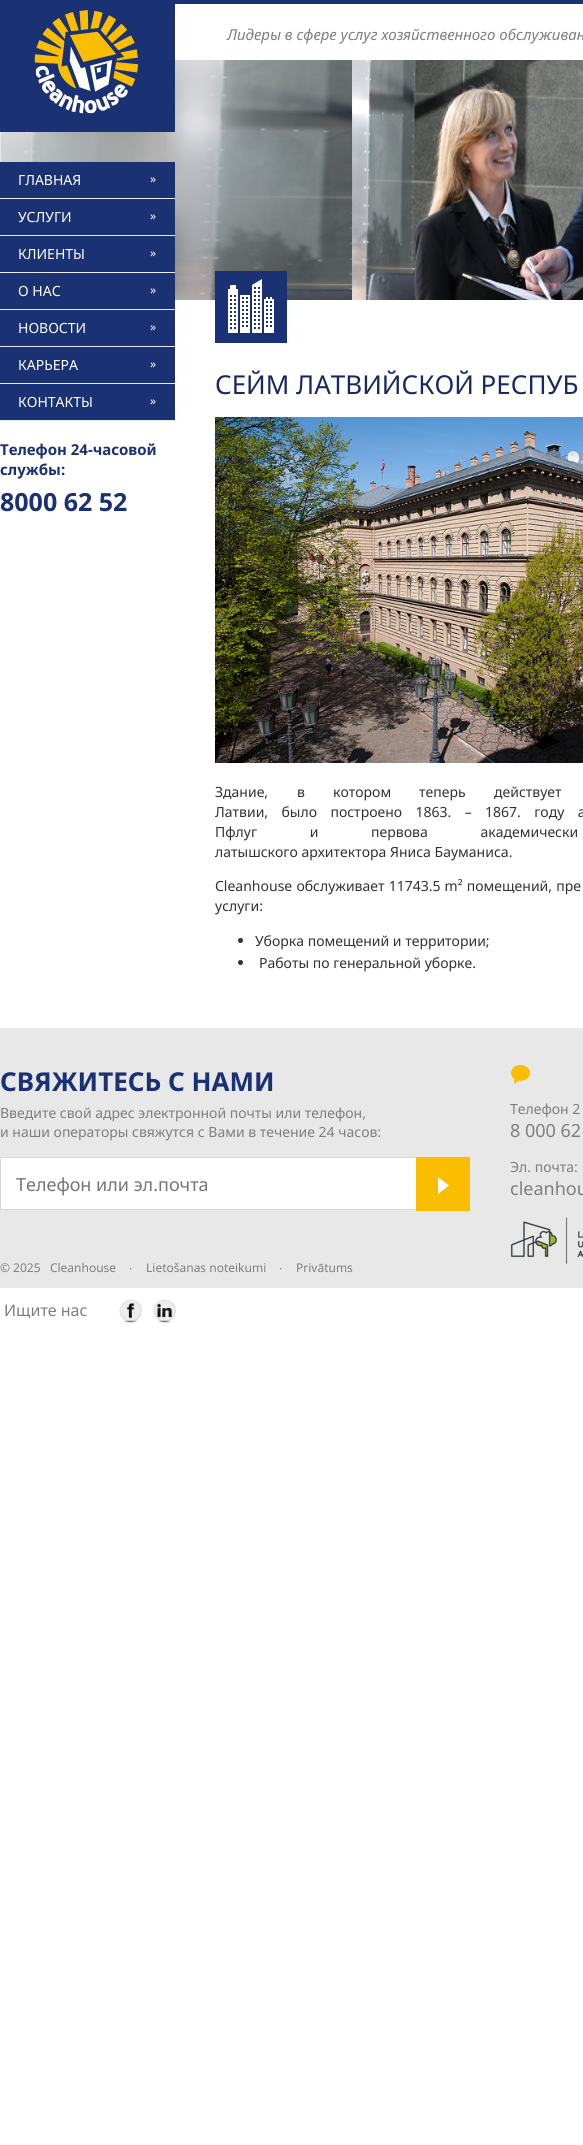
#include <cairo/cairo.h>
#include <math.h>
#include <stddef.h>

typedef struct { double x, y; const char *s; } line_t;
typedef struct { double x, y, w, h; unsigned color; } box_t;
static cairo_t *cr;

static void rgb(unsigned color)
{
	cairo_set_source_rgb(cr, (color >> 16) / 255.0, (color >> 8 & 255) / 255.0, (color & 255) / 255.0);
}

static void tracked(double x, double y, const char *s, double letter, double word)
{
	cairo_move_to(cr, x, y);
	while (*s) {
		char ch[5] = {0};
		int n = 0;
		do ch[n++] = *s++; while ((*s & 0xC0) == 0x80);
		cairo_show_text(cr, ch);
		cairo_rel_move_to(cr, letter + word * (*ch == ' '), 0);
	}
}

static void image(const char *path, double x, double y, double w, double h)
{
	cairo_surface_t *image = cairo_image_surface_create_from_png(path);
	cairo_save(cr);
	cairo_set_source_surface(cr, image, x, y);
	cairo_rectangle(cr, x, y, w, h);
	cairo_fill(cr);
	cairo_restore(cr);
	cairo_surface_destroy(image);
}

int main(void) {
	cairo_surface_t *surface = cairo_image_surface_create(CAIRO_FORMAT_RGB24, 583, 2145);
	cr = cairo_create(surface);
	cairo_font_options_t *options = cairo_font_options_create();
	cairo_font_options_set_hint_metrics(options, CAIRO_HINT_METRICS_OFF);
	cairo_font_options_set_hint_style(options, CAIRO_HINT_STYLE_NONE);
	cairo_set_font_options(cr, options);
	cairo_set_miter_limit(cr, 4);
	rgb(0xffffff);
	cairo_paint(cr);
	rgb(0x1a3175);
	cairo_rectangle(cr, 0, 0, 583, 4);
	cairo_fill(cr);
	image("img/4.png", 0, 60, 583, 240);
	image("img/1.png", 0, 4, 175, 128);
	{
		static const box_t items[] = {
			{0, 162, 175, 258, 0x1a3173},
			{0, 198, 175, 1, 0xe8eaf1},
			{0, 235, 175, 1, 0xe8eaf1},
			{0, 272, 175, 1, 0xe8eaf1},
			{0, 309, 175, 1, 0xe8eaf1},
			{0, 346, 175, 1, 0xe8eaf1},
			{0, 383, 175, 1, 0xe8eaf1},
			{0, 420, 175, 1, 0xe8eaf1},
		};
		for (size_t i = 0; i < sizeof items / sizeof *items; i++) {
			rgb(items[i].color);
			cairo_rectangle(cr, items[i].x, items[i].y, items[i].w, items[i].h);
			cairo_fill(cr);
		}
	}
	image("img/2.png", 215, 271, 72, 72);
	image("img/3.png", 215, 417, 368, 346);
	rgb(0x323232);
	cairo_arc(cr, 240.5, 940.5, 2.5, 0, 2 * M_PI);
	cairo_fill(cr);
	cairo_arc(cr, 240.5, 962.5, 2.5, 0, 2 * M_PI);
	cairo_fill(cr);
	rgb(0xe8e8e8);
	cairo_rectangle(cr, 0, 1028, 583, 260);
	cairo_fill(cr);
	rgb(0xffffff);
	cairo_rectangle(cr, 0.5, 1157.5, 416, 52);
	cairo_fill_preserve(cr);
	rgb(0xd5d9e5);
	cairo_set_line_width(cr, 1);
	cairo_stroke(cr);
	rgb(0xfabd00);
	cairo_rectangle(cr, 416, 1157, 54, 54);
	cairo_fill(cr);
	image("img/5.png", 438, 1177, 11, 17);
	image("img/6.png", 511, 1065, 19, 19);
	image("img/7.png", 510, 1217, 73, 47);
	image("img/8.png", 119, 1299, 23, 24);
	image("img/9.png", 153, 1299, 23, 24);
	cairo_select_font_face(cr, "Noto Sans", CAIRO_FONT_SLANT_ITALIC, CAIRO_FONT_WEIGHT_NORMAL);
	cairo_set_font_size(cr, 15);
	rgb(0x7e7e7e);
	cairo_move_to(cr, 227, 40);
	cairo_show_text(cr, "Лидеры в сфере услуг хозяйственного обслуживан");
	cairo_select_font_face(cr, "Noto Sans", CAIRO_FONT_SLANT_NORMAL, CAIRO_FONT_WEIGHT_NORMAL);
	cairo_set_font_size(cr, 14);
	rgb(0xffffff);
	cairo_move_to(cr, 18, 185);
	cairo_show_text(cr, "ГЛАВНАЯ");
	cairo_set_font_size(cr, 12);
	cairo_move_to(cr, 150, 183);
	cairo_show_text(cr, "»");
	cairo_set_font_size(cr, 14);
	cairo_move_to(cr, 18, 222);
	cairo_show_text(cr, "УСЛУГИ");
	cairo_set_font_size(cr, 12);
	cairo_move_to(cr, 150, 220);
	cairo_show_text(cr, "»");
	cairo_set_font_size(cr, 14);
	cairo_move_to(cr, 18, 259);
	cairo_show_text(cr, "КЛИЕНТЫ");
	cairo_set_font_size(cr, 12);
	cairo_move_to(cr, 150, 257);
	cairo_show_text(cr, "»");
	cairo_set_font_size(cr, 14);
	cairo_move_to(cr, 18, 296);
	cairo_show_text(cr, "О НАС");
	cairo_set_font_size(cr, 12);
	cairo_move_to(cr, 150, 294);
	cairo_show_text(cr, "»");
	cairo_set_font_size(cr, 14);
	cairo_move_to(cr, 18, 333);
	cairo_show_text(cr, "НОВОСТИ");
	cairo_set_font_size(cr, 12);
	cairo_move_to(cr, 150, 331);
	cairo_show_text(cr, "»");
	cairo_set_font_size(cr, 14);
	cairo_move_to(cr, 18, 370);
	cairo_show_text(cr, "КАРЬЕРА");
	cairo_set_font_size(cr, 12);
	cairo_move_to(cr, 150, 368);
	cairo_show_text(cr, "»");
	cairo_set_font_size(cr, 14);
	cairo_move_to(cr, 18, 407);
	cairo_show_text(cr, "КОНТАКТЫ");
	cairo_set_font_size(cr, 12);
	cairo_move_to(cr, 150, 405);
	cairo_show_text(cr, "»");
	cairo_select_font_face(cr, "Noto Sans", CAIRO_FONT_SLANT_NORMAL, CAIRO_FONT_WEIGHT_BOLD);
	cairo_set_font_size(cr, 15);
	rgb(0x1a3173);
	cairo_move_to(cr, 0, 455);
	cairo_show_text(cr, "Телефон 24-часовой");
	cairo_move_to(cr, 0, 475);
	cairo_show_text(cr, "службы:");
	cairo_set_font_size(cr, 25);
	cairo_move_to(cr, 0, 511);
	cairo_show_text(cr, "8000 62 52");
	cairo_select_font_face(cr, "Noto Sans", CAIRO_FONT_SLANT_NORMAL, CAIRO_FONT_WEIGHT_NORMAL);
	cairo_set_font_size(cr, 26);
	rgb(0x162965);
	cairo_move_to(cr, 215, 394);
	cairo_show_text(cr, "СЕЙМ ЛАТВИЙСКОЙ РЕСПУБ");
	cairo_set_font_size(cr, 14);
	rgb(0x323232);
	cairo_move_to(cr, 215, 797);
	cairo_show_text(cr, "Здание,");
	cairo_move_to(cr, 297, 797);
	cairo_show_text(cr, "в");
	cairo_move_to(cr, 333, 797);
	cairo_show_text(cr, "котором");
	cairo_move_to(cr, 419, 797);
	cairo_show_text(cr, "теперь");
	cairo_move_to(cr, 494, 797);
	cairo_show_text(cr, "действует");
	tracked(215, 817, "Латвии, было построено 1863. – 1867. году а", 0, 9.75);
	tracked(215, 837, "Пфлуг и первoвa академически", 0, 49);
	cairo_move_to(cr, 215, 857);
	cairo_show_text(cr, "латышского архитектора Янисa Бауманисa.");
	tracked(215, 891, "Cleanhouse обслуживает 11743.5 m² помещений, пре", 0, 0.5);
	{
		static const line_t items[] = {
			{215, 911, "услуги:"},
			{255, 946, "Уборка помещений и территории;"},
			{259, 968, "Работы по генеральной уборке."},
		};
		for (size_t i = 0; i < sizeof items / sizeof *items; i++) {
			cairo_move_to(cr, items[i].x, items[i].y);
			cairo_show_text(cr, items[i].s);
		}
	}
	cairo_select_font_face(cr, "Noto Sans", CAIRO_FONT_SLANT_NORMAL, CAIRO_FONT_WEIGHT_BOLD);
	cairo_set_font_size(cr, 26);
	rgb(0x1a3173);
	cairo_move_to(cr, 0, 1091);
	cairo_show_text(cr, "СВЯЖИТЕСЬ С НАМИ");
	cairo_select_font_face(cr, "Noto Sans", CAIRO_FONT_SLANT_NORMAL, CAIRO_FONT_WEIGHT_NORMAL);
	cairo_set_font_size(cr, 14);
	rgb(0x7e7e7e);
	cairo_move_to(cr, 0, 1118);
	cairo_show_text(cr, "Введите свой адрес электронной почты или телефон,");
	cairo_move_to(cr, 0, 1137);
	cairo_show_text(cr, "и наши операторы свяжутся с Вами в течение 24 часов:");
	cairo_set_font_size(cr, 18);
	rgb(0x757575);
	cairo_move_to(cr, 16, 1191);
	cairo_show_text(cr, "Телефон или эл.почта");
	cairo_set_font_size(cr, 12);
	rgb(0x7e7e7e);
	cairo_move_to(cr, 0, 1272);
	cairo_show_text(cr, "© 2025   Cleanhouse");
	cairo_select_font_face(cr, "Liberation Sans", CAIRO_FONT_SLANT_NORMAL, CAIRO_FONT_WEIGHT_NORMAL);
	cairo_move_to(cr, 129, 1272);
	cairo_show_text(cr, "∙");
	cairo_select_font_face(cr, "Noto Sans", CAIRO_FONT_SLANT_NORMAL, CAIRO_FONT_WEIGHT_NORMAL);
	cairo_move_to(cr, 146, 1272);
	cairo_show_text(cr, "Lietošanas noteikumi");
	cairo_select_font_face(cr, "Liberation Sans", CAIRO_FONT_SLANT_NORMAL, CAIRO_FONT_WEIGHT_NORMAL);
	cairo_move_to(cr, 279, 1272);
	cairo_show_text(cr, "∙");
	cairo_select_font_face(cr, "Noto Sans", CAIRO_FONT_SLANT_NORMAL, CAIRO_FONT_WEIGHT_NORMAL);
	cairo_move_to(cr, 296, 1272);
	cairo_show_text(cr, "Privātums");
	cairo_set_font_size(cr, 14);
	cairo_move_to(cr, 510, 1114);
	cairo_show_text(cr, "Телефон 2");
	cairo_set_font_size(cr, 18);
	cairo_move_to(cr, 510, 1137);
	cairo_show_text(cr, "8 000 62");
	cairo_set_font_size(cr, 14);
	cairo_move_to(cr, 510, 1172);
	cairo_show_text(cr, "Эл. почта:");
	cairo_set_font_size(cr, 18);
	cairo_move_to(cr, 510, 1195);
	cairo_show_text(cr, "cleanhou");
	cairo_set_font_size(cr, 16);
	cairo_move_to(cr, 4, 1316);
	cairo_show_text(cr, "Ищите нас");
	cairo_surface_write_to_png(surface, "page.png");
	cairo_font_options_destroy(options);
	cairo_destroy(cr);
	cairo_surface_destroy(surface);
	return 0;
}
